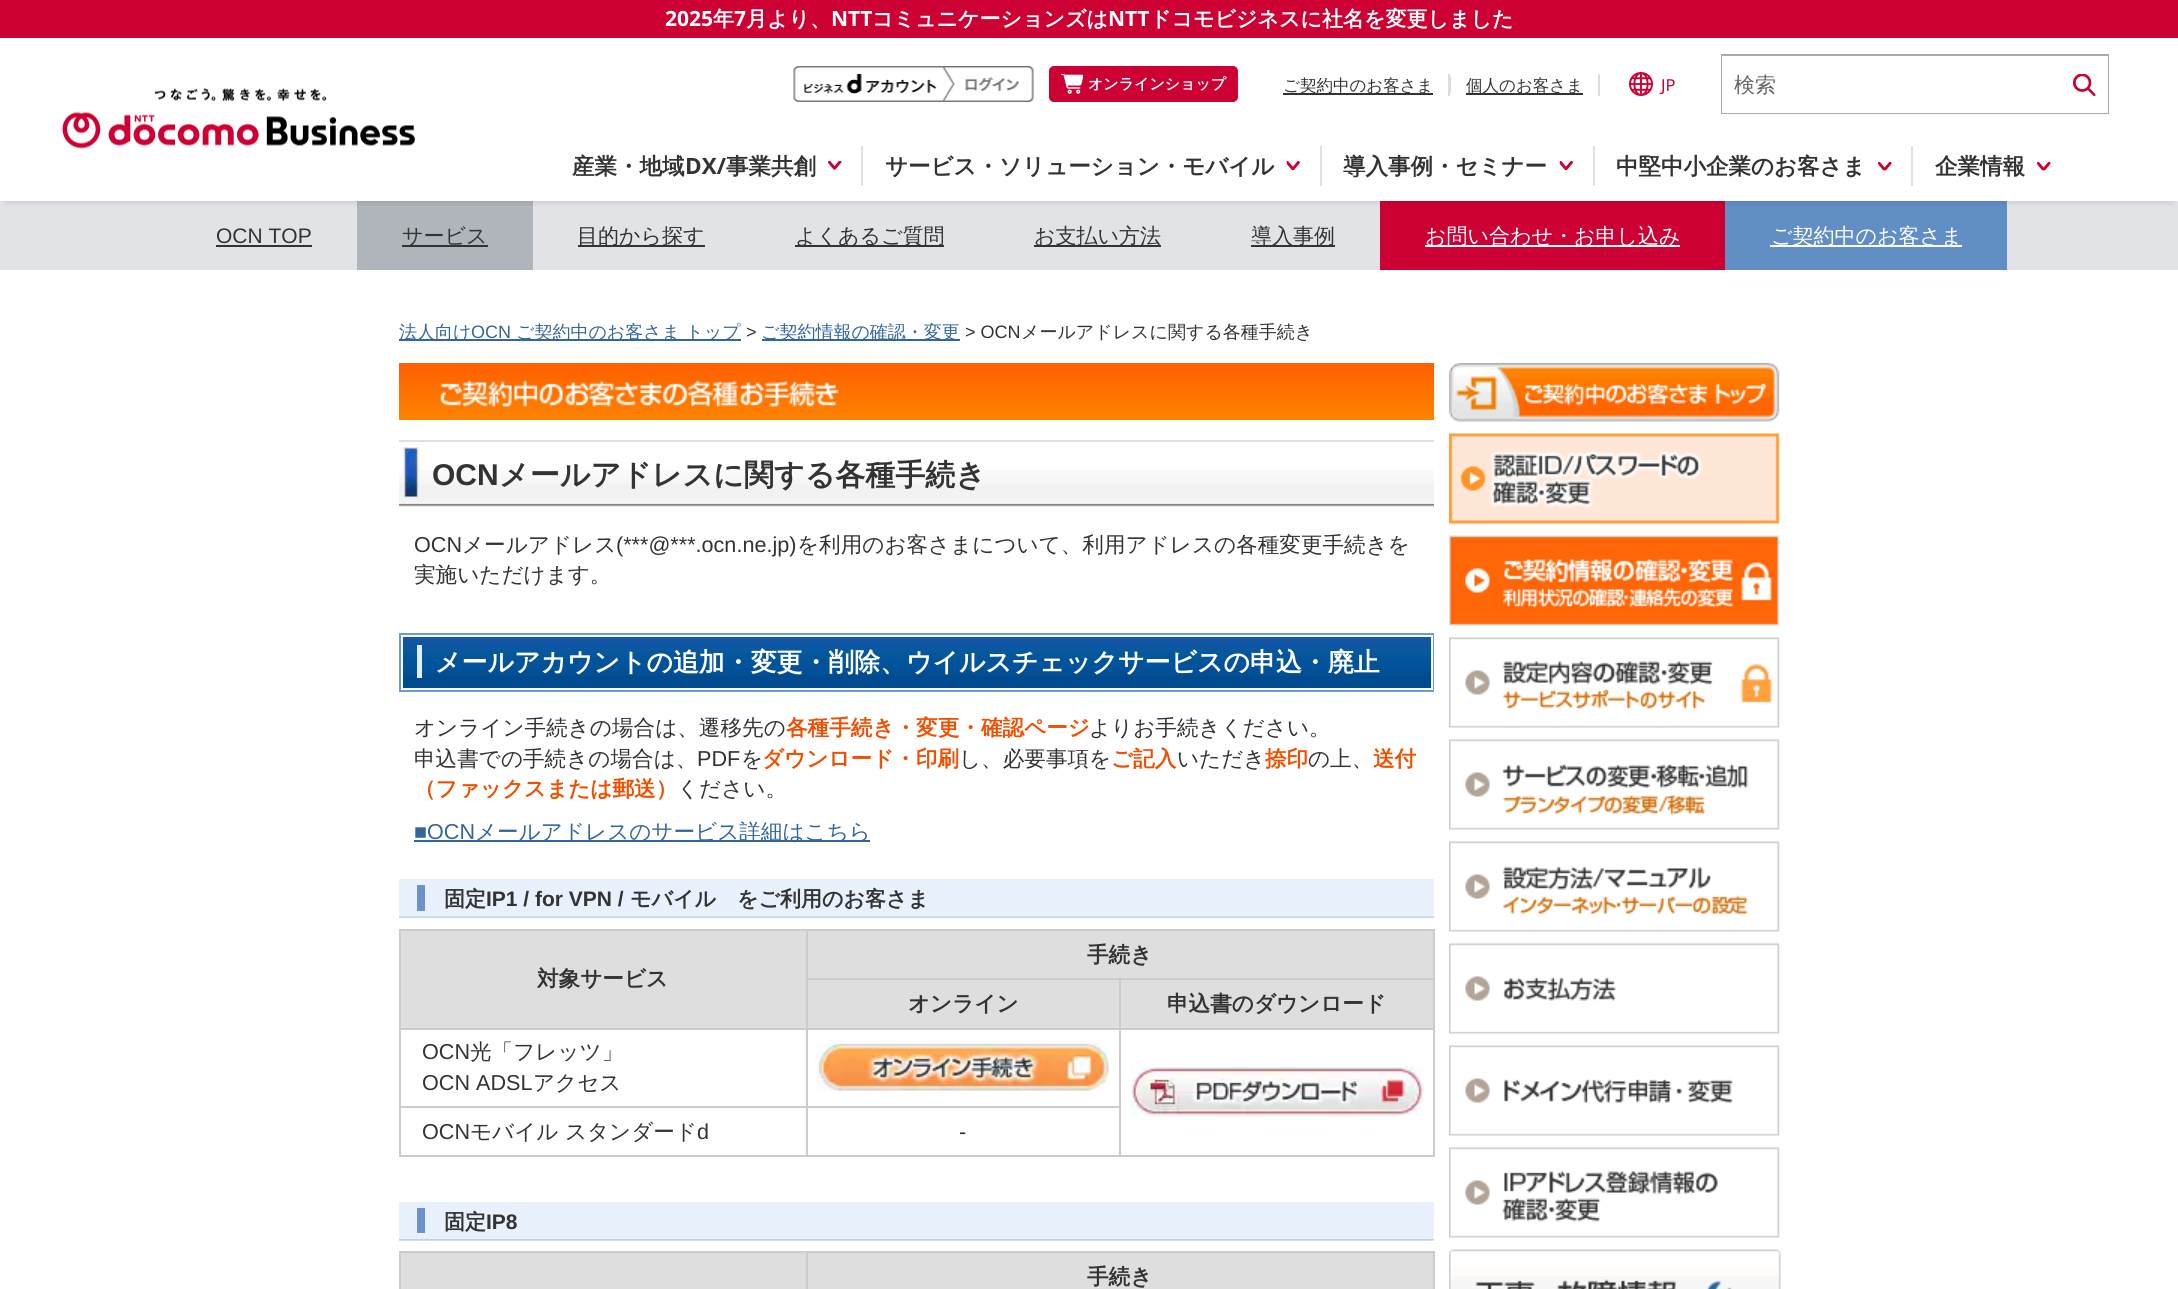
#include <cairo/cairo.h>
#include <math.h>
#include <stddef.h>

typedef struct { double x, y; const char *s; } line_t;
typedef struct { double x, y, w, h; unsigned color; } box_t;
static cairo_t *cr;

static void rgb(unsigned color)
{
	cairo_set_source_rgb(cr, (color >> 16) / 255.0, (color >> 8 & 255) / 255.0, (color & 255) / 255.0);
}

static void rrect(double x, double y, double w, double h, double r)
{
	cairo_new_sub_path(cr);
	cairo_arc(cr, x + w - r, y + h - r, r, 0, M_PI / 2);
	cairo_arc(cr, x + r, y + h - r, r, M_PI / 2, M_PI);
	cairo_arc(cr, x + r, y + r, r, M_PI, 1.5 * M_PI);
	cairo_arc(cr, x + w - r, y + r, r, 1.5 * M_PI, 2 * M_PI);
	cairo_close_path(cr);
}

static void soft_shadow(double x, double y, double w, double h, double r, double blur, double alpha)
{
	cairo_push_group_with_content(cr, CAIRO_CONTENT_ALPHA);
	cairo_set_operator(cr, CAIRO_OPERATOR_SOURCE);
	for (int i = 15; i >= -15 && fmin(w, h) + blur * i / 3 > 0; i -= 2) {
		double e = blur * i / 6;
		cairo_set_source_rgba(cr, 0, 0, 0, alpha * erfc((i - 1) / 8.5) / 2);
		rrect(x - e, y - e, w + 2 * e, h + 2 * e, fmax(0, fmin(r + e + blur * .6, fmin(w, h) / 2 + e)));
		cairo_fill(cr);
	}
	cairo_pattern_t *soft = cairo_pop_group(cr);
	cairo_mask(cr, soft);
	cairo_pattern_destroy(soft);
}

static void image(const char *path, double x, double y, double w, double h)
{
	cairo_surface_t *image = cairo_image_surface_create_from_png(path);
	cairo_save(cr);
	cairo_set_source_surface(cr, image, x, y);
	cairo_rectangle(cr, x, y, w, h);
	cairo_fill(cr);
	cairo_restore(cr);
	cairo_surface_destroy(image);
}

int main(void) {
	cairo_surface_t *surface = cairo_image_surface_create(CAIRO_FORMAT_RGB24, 2178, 1289);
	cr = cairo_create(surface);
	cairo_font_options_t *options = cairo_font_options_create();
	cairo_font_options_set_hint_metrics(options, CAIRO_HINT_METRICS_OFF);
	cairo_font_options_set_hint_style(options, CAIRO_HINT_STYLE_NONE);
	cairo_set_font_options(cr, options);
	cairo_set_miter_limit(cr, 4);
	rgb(0xffffff);
	cairo_paint(cr);
	rgb(0xcc0033);
	cairo_rectangle(cr, 0, 0, 2178, 38);
	cairo_fill(cr);
	image("img/1.png", 793, 66, 241, 36);
	rrect(1050, 67, 187, 34, 4);
	cairo_fill_preserve(cr);
	cairo_stroke(cr);
	image("img/2.png", 1061, 74, 22, 20);
	{
		static const box_t items[] = {
			{1448, 74, 2, 22, 0xdddddd},
			{1283, 93, 150, 2, 0x333333},
			{1450, 77, 1, 16, 0xdddddd},
			{1598, 74, 2, 22, 0xdddddd},
			{1466, 93, 117, 2, 0x333333},
		};
		for (size_t i = 0; i < sizeof items / sizeof *items; i++) {
			rgb(items[i].color);
			cairo_rectangle(cr, items[i].x, items[i].y, items[i].w, items[i].h);
			cairo_fill(cr);
		}
	}
	image("img/3.png", 1629, 72, 24, 24);
	cairo_rectangle(cr, 1722, 55, 386, 58);
	rgb(0xaaaaaa);
	cairo_stroke(cr);
	rgb(0xffffff);
	cairo_rectangle(cr, 1722, 56, 386, 57);
	cairo_fill(cr);
	image("img/4.png", 2073, 74, 23, 22);
	{
		static const box_t items[] = {
			{0, 201, 2178, 69, 0xe1e3e6},
			{357, 201, 176, 69, 0xb0b4bb},
			{1380, 201, 345, 69, 0xcc0033},
			{1725, 201, 282, 69, 0x608ec5},
		};
		for (size_t i = 0; i < sizeof items / sizeof *items; i++) {
			rgb(items[i].color);
			cairo_rectangle(cr, items[i].x, items[i].y, items[i].w, items[i].h);
			cairo_fill(cr);
		}
	}
	cairo_save(cr);
	cairo_rectangle(cr, 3, 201, 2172, 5);
	cairo_clip(cr);
	rgb(0x000000);
	soft_shadow(6, 143, 2166, 57, 0, 4.5, 0.2);
	cairo_restore(cr);
	image("img/5.png", 62, 88, 353, 61);
	image("img/6.png", 828, 161, 14, 9);
	rgb(0xe0e0e0);
	cairo_rectangle(cr, 861, 146, 2, 40);
	cairo_fill(cr);
	image("img/7.png", 1286, 161, 14, 10);
	cairo_rectangle(cr, 1320, 146, 2, 40);
	cairo_fill(cr);
	image("img/8.png", 1559, 161, 14, 10);
	cairo_rectangle(cr, 1593, 146, 2, 40);
	cairo_fill(cr);
	image("img/9.png", 1878, 161, 14, 10);
	cairo_rectangle(cr, 1911, 146, 2, 40);
	cairo_fill(cr);
	image("img/9.png", 2037, 161, 14, 10);
	{
		static const box_t items[] = {
			{216, 245, 96, 2, 0x333333},
			{402, 245, 86, 2, 0x333333},
			{578, 245, 127, 2, 0x333333},
			{795, 245, 149, 2, 0x333333},
			{1034, 245, 127, 2, 0x333333},
			{1251, 245, 84, 2, 0x333333},
			{1425, 245, 255, 2, 0xffffff},
			{1770, 245, 192, 2, 0xffffff},
			{399, 339, 342, 2, 0x336699},
			{762, 339, 198, 2, 0x336699},
		};
		for (size_t i = 0; i < sizeof items / sizeof *items; i++) {
			rgb(items[i].color);
			cairo_rectangle(cr, items[i].x, items[i].y, items[i].w, items[i].h);
			cairo_fill(cr);
		}
	}
	image("img/10.png", 399, 363, 1035, 57);
	image("img/11.png", 399, 470, 1035, 37);
	rgb(0xe0e0e0);
	cairo_rectangle(cr, 399, 440, 1035, 2);
	cairo_fill(cr);
	image("img/12.png", 403, 447, 16, 51);
	rgb(0x004a90);
	cairo_rectangle(cr, 403, 676, 1028, 12);
	cairo_fill(cr);
	image("img/13.png", 403, 637, 1028, 39);
	cairo_rectangle(cr, 400, 634, 1033, 57);
	rgb(0x659ed5);
	cairo_stroke(cr);
	rgb(0xe0f0ff);
	cairo_rectangle(cr, 417, 645, 5, 33);
	cairo_fill(cr);
	cairo_rectangle(cr, 402, 636, 1030, 53);
	rgb(0xffffff);
	cairo_stroke(cr);
	rgb(0x336699);
	cairo_rectangle(cr, 414, 840, 456, 2);
	cairo_fill(cr);
	rgb(0xe9f1fc);
	cairo_rectangle(cr, 399, 879, 1035, 38);
	cairo_fill(cr);
	image("img/14.png", 399, 916, 1035, 2);
	{
		static const box_t items[] = {
			{417, 885, 8, 26, 0x6b91ca},
			{808, 931, 625, 47, 0xdedede},
			{806, 929, 628, 2, 0xcccccc},
			{1119, 978, 315, 2, 0xcccccc},
			{1119, 1028, 315, 2, 0xcccccc},
			{1433, 1028, 2, 129, 0xcccccc},
			{1433, 978, 2, 51, 0xcccccc},
			{1433, 929, 2, 51, 0xcccccc},
			{806, 1155, 315, 2, 0xcccccc},
			{1119, 1155, 315, 2, 0xcccccc},
			{806, 1106, 315, 2, 0xcccccc},
			{1119, 1028, 2, 129, 0xcccccc},
			{806, 1028, 315, 2, 0xcccccc},
			{1119, 978, 2, 51, 0xcccccc},
			{806, 978, 315, 2, 0xcccccc},
			{806, 1106, 2, 51, 0xcccccc},
			{399, 1106, 408, 2, 0xcccccc},
			{806, 1028, 2, 79, 0xcccccc},
			{399, 1028, 408, 2, 0xcccccc},
			{806, 978, 2, 51, 0xcccccc},
			{806, 929, 2, 51, 0xcccccc},
			{401, 931, 405, 97, 0xdedede},
			{399, 929, 408, 2, 0xcccccc},
			{399, 1155, 408, 2, 0xcccccc},
			{399, 1106, 2, 51, 0xcccccc},
			{399, 1028, 2, 79, 0xcccccc},
			{399, 929, 2, 100, 0xcccccc},
			{808, 980, 311, 48, 0xdedede},
			{1121, 980, 312, 48, 0xdedede},
		};
		for (size_t i = 0; i < sizeof items / sizeof *items; i++) {
			rgb(items[i].color);
			cairo_rectangle(cr, items[i].x, items[i].y, items[i].w, items[i].h);
			cairo_fill(cr);
		}
	}
	image("img/15.png", 817, 1042, 292, 49);
	image("img/16.png", 1131, 1066, 293, 50);
	rgb(0xe9f1fc);
	cairo_rectangle(cr, 399, 1202, 1035, 39);
	cairo_fill(cr);
	image("img/17.png", 399, 1239, 1035, 2);
	{
		static const box_t items[] = {
			{417, 1208, 8, 25, 0x6b91ca},
			{401, 1253, 405, 36, 0xdedede},
			{806, 1251, 628, 2, 0xcccccc},
			{806, 1251, 2, 38, 0xcccccc},
			{399, 1251, 408, 2, 0xcccccc},
			{399, 1251, 2, 38, 0xcccccc},
			{808, 1253, 625, 36, 0xdedede},
			{1433, 1251, 2, 38, 0xcccccc},
		};
		for (size_t i = 0; i < sizeof items / sizeof *items; i++) {
			rgb(items[i].color);
			cairo_rectangle(cr, items[i].x, items[i].y, items[i].w, items[i].h);
			cairo_fill(cr);
		}
	}
	image("img/18.png", 1449, 363, 331, 59);
	image("img/19.png", 1449, 433, 331, 91);
	image("img/20.png", 1449, 535, 331, 91);
	image("img/21.png", 1449, 637, 331, 91);
	image("img/22.png", 1449, 739, 331, 91);
	image("img/23.png", 1449, 841, 331, 91);
	image("img/24.png", 1449, 943, 331, 91);
	image("img/25.png", 1449, 1045, 331, 91);
	image("img/26.png", 1449, 1147, 331, 91);
	image("img/27.png", 1449, 1249, 332, 40);
	cairo_select_font_face(cr, "Noto Sans", CAIRO_FONT_SLANT_NORMAL, CAIRO_FONT_WEIGHT_BOLD);
	cairo_set_font_size(cr, 21);
	rgb(0xffffff);
	cairo_move_to(cr, 665, 26);
	cairo_show_text(cr, "2025");
	cairo_select_font_face(cr, "WenQuanYi Zen Hei", CAIRO_FONT_SLANT_NORMAL, CAIRO_FONT_WEIGHT_BOLD);
	cairo_move_to(cr, 713, 26);
	cairo_show_text(cr, "年");
	cairo_select_font_face(cr, "Noto Sans", CAIRO_FONT_SLANT_NORMAL, CAIRO_FONT_WEIGHT_BOLD);
	cairo_move_to(cr, 734, 26);
	cairo_show_text(cr, "7");
	cairo_select_font_face(cr, "WenQuanYi Zen Hei", CAIRO_FONT_SLANT_NORMAL, CAIRO_FONT_WEIGHT_BOLD);
	cairo_move_to(cr, 746, 26);
	cairo_show_text(cr, "月より、");
	cairo_select_font_face(cr, "Noto Sans", CAIRO_FONT_SLANT_NORMAL, CAIRO_FONT_WEIGHT_BOLD);
	cairo_move_to(cr, 831, 26);
	cairo_show_text(cr, "NTT");
	cairo_select_font_face(cr, "WenQuanYi Zen Hei", CAIRO_FONT_SLANT_NORMAL, CAIRO_FONT_WEIGHT_BOLD);
	cairo_move_to(cr, 872, 26);
	cairo_show_text(cr, "コミュニケーションズは");
	cairo_select_font_face(cr, "Noto Sans", CAIRO_FONT_SLANT_NORMAL, CAIRO_FONT_WEIGHT_BOLD);
	cairo_move_to(cr, 1108, 26);
	cairo_show_text(cr, "NTT");
	cairo_select_font_face(cr, "WenQuanYi Zen Hei", CAIRO_FONT_SLANT_NORMAL, CAIRO_FONT_WEIGHT_BOLD);
	cairo_move_to(cr, 1150, 26);
	cairo_show_text(cr, "ドコモビジネスに社名を変更しました");
	cairo_set_font_size(cr, 15);
	cairo_move_to(cr, 1088, 89);
	cairo_show_text(cr, "オンラインショップ");
	cairo_select_font_face(cr, "WenQuanYi Zen Hei Medium", CAIRO_FONT_SLANT_NORMAL, CAIRO_FONT_WEIGHT_NORMAL);
	cairo_set_font_size(cr, 16.5);
	rgb(0x333333);
	cairo_move_to(cr, 1283, 91);
	cairo_show_text(cr, "ご契約中のお客さま");
	cairo_move_to(cr, 1466, 91);
	cairo_show_text(cr, "個人のお客さま");
	cairo_select_font_face(cr, "Noto Sans", CAIRO_FONT_SLANT_NORMAL, CAIRO_FONT_WEIGHT_NORMAL);
	rgb(0xcc0033);
	cairo_move_to(cr, 1661, 91);
	cairo_show_text(cr, "JP");
	cairo_select_font_face(cr, "WenQuanYi Zen Hei Medium", CAIRO_FONT_SLANT_NORMAL, CAIRO_FONT_WEIGHT_NORMAL);
	cairo_set_font_size(cr, 21);
	rgb(0x666666);
	cairo_move_to(cr, 1734, 92);
	cairo_show_text(cr, "検索");
	cairo_select_font_face(cr, "WenQuanYi Zen Hei", CAIRO_FONT_SLANT_NORMAL, CAIRO_FONT_WEIGHT_BOLD);
	cairo_set_font_size(cr, 22.5);
	rgb(0x333333);
	cairo_move_to(cr, 572, 174);
	cairo_show_text(cr, "産業・地域");
	cairo_select_font_face(cr, "Noto Sans", CAIRO_FONT_SLANT_NORMAL, CAIRO_FONT_WEIGHT_BOLD);
	cairo_move_to(cr, 685, 174);
	cairo_show_text(cr, "DX/");
	cairo_select_font_face(cr, "WenQuanYi Zen Hei", CAIRO_FONT_SLANT_NORMAL, CAIRO_FONT_WEIGHT_BOLD);
	{
		static const line_t items[] = {
			{726, 174, "事業共創"},
			{885, 174, "サービス・ソリューション・モバイル"},
			{1343, 174, "導入事例・セミナー"},
			{1616, 174, "中堅中小企業のお客さま"},
			{1935, 174, "企業情報"},
		};
		for (size_t i = 0; i < sizeof items / sizeof *items; i++) {
			cairo_move_to(cr, items[i].x, items[i].y);
			cairo_show_text(cr, items[i].s);
		}
	}
	cairo_select_font_face(cr, "Liberation Sans", CAIRO_FONT_SLANT_NORMAL, CAIRO_FONT_WEIGHT_NORMAL);
	cairo_set_font_size(cr, 21);
	cairo_move_to(cr, 216, 243);
	cairo_show_text(cr, "OCN TOP");
	cairo_select_font_face(cr, "WenQuanYi Zen Hei Medium", CAIRO_FONT_SLANT_NORMAL, CAIRO_FONT_WEIGHT_NORMAL);
	{
		static const line_t items[] = {
			{402, 243, "サービス"},
			{577, 243, "目的から探す"},
			{795, 243, "よくあるご質問"},
			{1034, 243, "お支払い方法"},
			{1251, 243, "導入事例"},
		};
		for (size_t i = 0; i < sizeof items / sizeof *items; i++) {
			cairo_move_to(cr, items[i].x, items[i].y);
			cairo_show_text(cr, items[i].s);
		}
	}
	rgb(0xffffff);
	cairo_move_to(cr, 1425, 243);
	cairo_show_text(cr, "お問い合わせ・お申し込み");
	cairo_move_to(cr, 1771, 243);
	cairo_show_text(cr, "ご契約中のお客さま");
	cairo_set_font_size(cr, 18);
	rgb(0x336699);
	cairo_move_to(cr, 399, 338);
	cairo_show_text(cr, "法人向け");
	cairo_select_font_face(cr, "Liberation Sans", CAIRO_FONT_SLANT_NORMAL, CAIRO_FONT_WEIGHT_NORMAL);
	cairo_move_to(cr, 471, 338);
	cairo_show_text(cr, "OCN");
	cairo_select_font_face(cr, "WenQuanYi Zen Hei Medium", CAIRO_FONT_SLANT_NORMAL, CAIRO_FONT_WEIGHT_NORMAL);
	cairo_move_to(cr, 516, 338);
	cairo_show_text(cr, "ご契約中のお客さま トップ");
	cairo_select_font_face(cr, "Liberation Sans", CAIRO_FONT_SLANT_NORMAL, CAIRO_FONT_WEIGHT_NORMAL);
	rgb(0x333333);
	cairo_move_to(cr, 746, 338);
	cairo_show_text(cr, ">");
	cairo_select_font_face(cr, "WenQuanYi Zen Hei Medium", CAIRO_FONT_SLANT_NORMAL, CAIRO_FONT_WEIGHT_NORMAL);
	rgb(0x336699);
	cairo_move_to(cr, 761, 338);
	cairo_show_text(cr, "ご契約情報の確認・変更");
	cairo_select_font_face(cr, "Liberation Sans", CAIRO_FONT_SLANT_NORMAL, CAIRO_FONT_WEIGHT_NORMAL);
	rgb(0x333333);
	cairo_move_to(cr, 965, 338);
	cairo_show_text(cr, "> OCN");
	cairo_select_font_face(cr, "WenQuanYi Zen Hei Medium", CAIRO_FONT_SLANT_NORMAL, CAIRO_FONT_WEIGHT_NORMAL);
	cairo_move_to(cr, 1021, 338);
	cairo_show_text(cr, "メールアドレスに関する各種手続き");
	cairo_select_font_face(cr, "Liberation Sans", CAIRO_FONT_SLANT_NORMAL, CAIRO_FONT_WEIGHT_BOLD);
	cairo_set_font_size(cr, 30);
	cairo_move_to(cr, 432, 485);
	cairo_show_text(cr, "OCN");
	cairo_select_font_face(cr, "WenQuanYi Zen Hei", CAIRO_FONT_SLANT_NORMAL, CAIRO_FONT_WEIGHT_BOLD);
	cairo_move_to(cr, 499, 485);
	cairo_show_text(cr, "メールアドレスに関する各種手続き");
	cairo_select_font_face(cr, "Liberation Sans", CAIRO_FONT_SLANT_NORMAL, CAIRO_FONT_WEIGHT_NORMAL);
	cairo_set_font_size(cr, 21.6);
	cairo_move_to(cr, 414, 552);
	cairo_show_text(cr, "OCN");
	cairo_select_font_face(cr, "WenQuanYi Zen Hei Medium", CAIRO_FONT_SLANT_NORMAL, CAIRO_FONT_WEIGHT_NORMAL);
	cairo_move_to(cr, 462, 552);
	cairo_show_text(cr, "メールアドレス");
	cairo_select_font_face(cr, "Liberation Sans", CAIRO_FONT_SLANT_NORMAL, CAIRO_FONT_WEIGHT_NORMAL);
	cairo_move_to(cr, 616, 552);
	cairo_show_text(cr, "(***@***.ocn.ne.jp)");
	cairo_select_font_face(cr, "WenQuanYi Zen Hei Medium", CAIRO_FONT_SLANT_NORMAL, CAIRO_FONT_WEIGHT_NORMAL);
	cairo_move_to(cr, 797, 552);
	cairo_show_text(cr, "を利用のお客さまについて、利用アドレスの各種変更手続きを");
	cairo_move_to(cr, 414, 582);
	cairo_show_text(cr, "実施いただけます。");
	cairo_select_font_face(cr, "WenQuanYi Zen Hei", CAIRO_FONT_SLANT_NORMAL, CAIRO_FONT_WEIGHT_BOLD);
	cairo_set_font_size(cr, 25.9);
	rgb(0xffffff);
	cairo_move_to(cr, 435, 671);
	cairo_show_text(cr, "メールアカウントの追加・変更・削除、ウイルスチェックサービスの申込・廃止");
	cairo_select_font_face(cr, "WenQuanYi Zen Hei Medium", CAIRO_FONT_SLANT_NORMAL, CAIRO_FONT_WEIGHT_NORMAL);
	cairo_set_font_size(cr, 21.6);
	rgb(0x333333);
	cairo_move_to(cr, 414, 735);
	cairo_show_text(cr, "オンライン手続きの場合は、遷移先の");
	cairo_select_font_face(cr, "WenQuanYi Zen Hei", CAIRO_FONT_SLANT_NORMAL, CAIRO_FONT_WEIGHT_BOLD);
	rgb(0xf14f00);
	cairo_move_to(cr, 786, 735);
	cairo_show_text(cr, "各種手続き・変更・確認ページ");
	cairo_select_font_face(cr, "WenQuanYi Zen Hei Medium", CAIRO_FONT_SLANT_NORMAL, CAIRO_FONT_WEIGHT_NORMAL);
	rgb(0x333333);
	cairo_move_to(cr, 1089, 735);
	cairo_show_text(cr, "よりお手続きください。");
	cairo_move_to(cr, 414, 766);
	cairo_show_text(cr, "申込書での手続きの場合は、");
	cairo_select_font_face(cr, "Liberation Sans", CAIRO_FONT_SLANT_NORMAL, CAIRO_FONT_WEIGHT_NORMAL);
	cairo_move_to(cr, 697, 766);
	cairo_show_text(cr, "PDF");
	cairo_select_font_face(cr, "WenQuanYi Zen Hei Medium", CAIRO_FONT_SLANT_NORMAL, CAIRO_FONT_WEIGHT_NORMAL);
	cairo_move_to(cr, 741, 766);
	cairo_show_text(cr, "を");
	cairo_select_font_face(cr, "WenQuanYi Zen Hei", CAIRO_FONT_SLANT_NORMAL, CAIRO_FONT_WEIGHT_BOLD);
	rgb(0xf14f00);
	cairo_move_to(cr, 762, 766);
	cairo_show_text(cr, "ダウンロード・印刷");
	cairo_select_font_face(cr, "WenQuanYi Zen Hei Medium", CAIRO_FONT_SLANT_NORMAL, CAIRO_FONT_WEIGHT_NORMAL);
	rgb(0x333333);
	cairo_move_to(cr, 959, 766);
	cairo_show_text(cr, "し、必要事項を");
	cairo_select_font_face(cr, "WenQuanYi Zen Hei", CAIRO_FONT_SLANT_NORMAL, CAIRO_FONT_WEIGHT_BOLD);
	rgb(0xf14f00);
	cairo_move_to(cr, 1111, 766);
	cairo_show_text(cr, "ご記入");
	cairo_select_font_face(cr, "WenQuanYi Zen Hei Medium", CAIRO_FONT_SLANT_NORMAL, CAIRO_FONT_WEIGHT_NORMAL);
	rgb(0x333333);
	cairo_move_to(cr, 1177, 766);
	cairo_show_text(cr, "いただき");
	cairo_select_font_face(cr, "WenQuanYi Zen Hei", CAIRO_FONT_SLANT_NORMAL, CAIRO_FONT_WEIGHT_BOLD);
	rgb(0xf14f00);
	cairo_move_to(cr, 1265, 766);
	cairo_show_text(cr, "捺印");
	cairo_select_font_face(cr, "WenQuanYi Zen Hei Medium", CAIRO_FONT_SLANT_NORMAL, CAIRO_FONT_WEIGHT_NORMAL);
	rgb(0x333333);
	cairo_move_to(cr, 1308, 766);
	cairo_show_text(cr, "の上、");
	cairo_select_font_face(cr, "WenQuanYi Zen Hei", CAIRO_FONT_SLANT_NORMAL, CAIRO_FONT_WEIGHT_BOLD);
	rgb(0xf14f00);
	cairo_move_to(cr, 1373, 766);
	cairo_show_text(cr, "送付");
	cairo_move_to(cr, 414, 796);
	cairo_show_text(cr, "（ファックスまたは郵送）");
	cairo_select_font_face(cr, "WenQuanYi Zen Hei Medium", CAIRO_FONT_SLANT_NORMAL, CAIRO_FONT_WEIGHT_NORMAL);
	rgb(0x333333);
	cairo_move_to(cr, 677, 796);
	cairo_show_text(cr, "ください。");
	cairo_select_font_face(cr, "Liberation Sans", CAIRO_FONT_SLANT_NORMAL, CAIRO_FONT_WEIGHT_NORMAL);
	rgb(0x336699);
	cairo_move_to(cr, 414, 839);
	cairo_show_text(cr, "■OCN");
	cairo_select_font_face(cr, "WenQuanYi Zen Hei Medium", CAIRO_FONT_SLANT_NORMAL, CAIRO_FONT_WEIGHT_NORMAL);
	cairo_move_to(cr, 475, 839);
	cairo_show_text(cr, "メールアドレスのサービス詳細はこちら");
	cairo_select_font_face(cr, "WenQuanYi Zen Hei", CAIRO_FONT_SLANT_NORMAL, CAIRO_FONT_WEIGHT_BOLD);
	cairo_set_font_size(cr, 21);
	rgb(0x333333);
	cairo_move_to(cr, 444, 906);
	cairo_show_text(cr, "固定");
	cairo_select_font_face(cr, "Liberation Sans", CAIRO_FONT_SLANT_NORMAL, CAIRO_FONT_WEIGHT_BOLD);
	cairo_move_to(cr, 486, 906);
	cairo_show_text(cr, "IP1 / for VPN /");
	cairo_select_font_face(cr, "WenQuanYi Zen Hei", CAIRO_FONT_SLANT_NORMAL, CAIRO_FONT_WEIGHT_BOLD);
	cairo_move_to(cr, 630, 906);
	cairo_show_text(cr, "モバイル　をご利用のお客さま");
	cairo_set_font_size(cr, 21.6);
	{
		static const line_t items[] = {
			{1087, 962, "手続き"},
			{537, 986, "対象サービス"},
			{908, 1011, "オンライン"},
			{1167, 1011, "申込書のダウンロード"},
		};
		for (size_t i = 0; i < sizeof items / sizeof *items; i++) {
			cairo_move_to(cr, items[i].x, items[i].y);
			cairo_show_text(cr, items[i].s);
		}
	}
	cairo_select_font_face(cr, "Liberation Sans", CAIRO_FONT_SLANT_NORMAL, CAIRO_FONT_WEIGHT_NORMAL);
	cairo_move_to(cr, 422, 1059);
	cairo_show_text(cr, "OCN");
	cairo_select_font_face(cr, "WenQuanYi Zen Hei Medium", CAIRO_FONT_SLANT_NORMAL, CAIRO_FONT_WEIGHT_NORMAL);
	cairo_move_to(cr, 470, 1059);
	cairo_show_text(cr, "光「フレッツ」");
	cairo_select_font_face(cr, "Liberation Sans", CAIRO_FONT_SLANT_NORMAL, CAIRO_FONT_WEIGHT_NORMAL);
	cairo_move_to(cr, 422, 1090);
	cairo_show_text(cr, "OCN ADSL");
	cairo_select_font_face(cr, "WenQuanYi Zen Hei Medium", CAIRO_FONT_SLANT_NORMAL, CAIRO_FONT_WEIGHT_NORMAL);
	cairo_move_to(cr, 533, 1090);
	cairo_show_text(cr, "アクセス");
	cairo_select_font_face(cr, "Liberation Sans", CAIRO_FONT_SLANT_NORMAL, CAIRO_FONT_WEIGHT_NORMAL);
	cairo_move_to(cr, 422, 1139);
	cairo_show_text(cr, "OCN");
	cairo_select_font_face(cr, "WenQuanYi Zen Hei Medium", CAIRO_FONT_SLANT_NORMAL, CAIRO_FONT_WEIGHT_NORMAL);
	cairo_move_to(cr, 470, 1139);
	cairo_show_text(cr, "モバイル スタンダード");
	cairo_select_font_face(cr, "Liberation Sans", CAIRO_FONT_SLANT_NORMAL, CAIRO_FONT_WEIGHT_NORMAL);
	cairo_move_to(cr, 697, 1139);
	cairo_show_text(cr, "d");
	cairo_move_to(cr, 959, 1139);
	cairo_show_text(cr, "-");
	cairo_select_font_face(cr, "WenQuanYi Zen Hei", CAIRO_FONT_SLANT_NORMAL, CAIRO_FONT_WEIGHT_BOLD);
	cairo_set_font_size(cr, 21);
	cairo_move_to(cr, 444, 1229);
	cairo_show_text(cr, "固定");
	cairo_select_font_face(cr, "Liberation Sans", CAIRO_FONT_SLANT_NORMAL, CAIRO_FONT_WEIGHT_BOLD);
	cairo_move_to(cr, 486, 1229);
	cairo_show_text(cr, "IP8");
	cairo_select_font_face(cr, "WenQuanYi Zen Hei", CAIRO_FONT_SLANT_NORMAL, CAIRO_FONT_WEIGHT_BOLD);
	cairo_set_font_size(cr, 21.6);
	cairo_move_to(cr, 1087, 1284);
	cairo_show_text(cr, "手続き");
	cairo_surface_write_to_png(surface, "page.png");
	cairo_font_options_destroy(options);
	cairo_destroy(cr);
	cairo_surface_destroy(surface);
	return 0;
}
